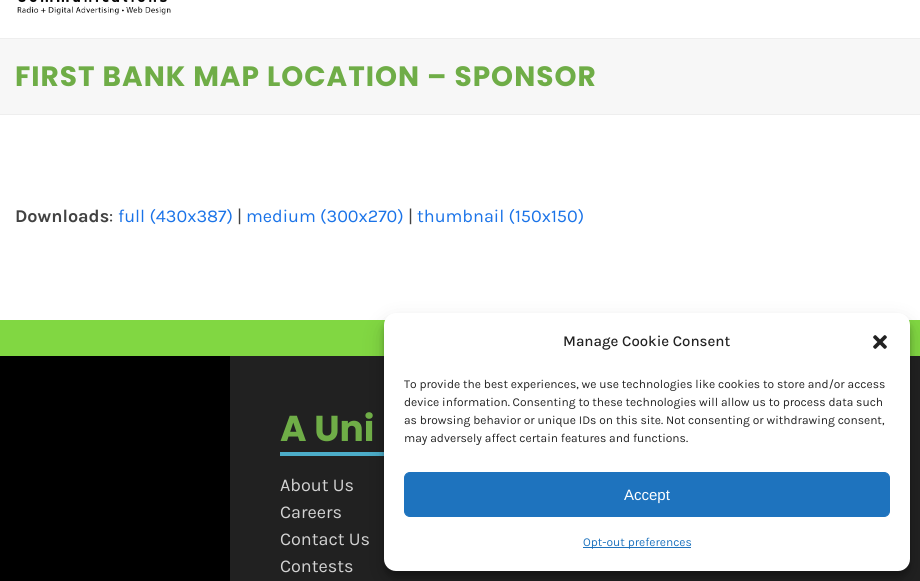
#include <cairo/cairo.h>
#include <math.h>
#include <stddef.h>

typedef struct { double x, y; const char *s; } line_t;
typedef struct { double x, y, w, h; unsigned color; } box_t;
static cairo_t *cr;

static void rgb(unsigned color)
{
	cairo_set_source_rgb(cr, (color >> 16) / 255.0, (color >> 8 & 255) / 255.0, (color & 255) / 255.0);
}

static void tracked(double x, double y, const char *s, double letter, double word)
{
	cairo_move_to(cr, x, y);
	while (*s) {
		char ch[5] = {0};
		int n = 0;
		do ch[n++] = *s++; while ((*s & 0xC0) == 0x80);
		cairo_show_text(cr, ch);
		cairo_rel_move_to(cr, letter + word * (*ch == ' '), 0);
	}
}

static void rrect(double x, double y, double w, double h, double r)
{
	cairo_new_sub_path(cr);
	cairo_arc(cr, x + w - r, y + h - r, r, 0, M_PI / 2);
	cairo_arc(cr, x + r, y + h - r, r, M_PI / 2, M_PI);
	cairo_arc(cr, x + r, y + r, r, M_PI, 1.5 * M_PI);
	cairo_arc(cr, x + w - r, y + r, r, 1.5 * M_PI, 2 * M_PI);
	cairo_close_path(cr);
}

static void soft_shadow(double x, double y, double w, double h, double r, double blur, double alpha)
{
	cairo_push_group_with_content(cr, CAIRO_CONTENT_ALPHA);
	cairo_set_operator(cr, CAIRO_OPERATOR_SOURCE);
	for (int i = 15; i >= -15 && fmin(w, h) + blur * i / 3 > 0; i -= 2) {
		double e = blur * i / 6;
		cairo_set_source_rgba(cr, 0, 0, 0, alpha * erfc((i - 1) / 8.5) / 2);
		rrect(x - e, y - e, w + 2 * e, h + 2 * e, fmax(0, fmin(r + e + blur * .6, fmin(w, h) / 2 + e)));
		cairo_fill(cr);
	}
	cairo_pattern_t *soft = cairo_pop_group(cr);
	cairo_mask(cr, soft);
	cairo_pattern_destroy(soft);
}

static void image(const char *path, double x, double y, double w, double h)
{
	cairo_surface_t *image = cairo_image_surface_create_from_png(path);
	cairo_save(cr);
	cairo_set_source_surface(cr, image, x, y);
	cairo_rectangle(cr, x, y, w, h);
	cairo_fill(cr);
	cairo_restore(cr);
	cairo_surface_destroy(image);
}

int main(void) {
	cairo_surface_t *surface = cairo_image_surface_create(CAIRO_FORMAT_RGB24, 920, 581);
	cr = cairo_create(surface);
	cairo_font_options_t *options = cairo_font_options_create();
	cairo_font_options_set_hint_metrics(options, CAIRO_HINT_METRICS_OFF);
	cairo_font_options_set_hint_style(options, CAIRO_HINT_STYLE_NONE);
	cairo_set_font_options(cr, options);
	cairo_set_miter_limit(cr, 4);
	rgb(0xffffff);
	cairo_paint(cr);
	image("img/1.png", 17, 0, 154, 15);
	{
		static const box_t items[] = {
			{0, 39, 920, 75, 0xf7f7f7},
			{0, 38, 920, 1, 0xeeeeee},
			{0, 114, 920, 1, 0xeeeeee},
			{0, 320, 920, 36, 0x81d742},
			{230, 356, 690, 225, 0x212121},
			{0, 356, 230, 225, 0x000000},
			{280, 452, 104, 4, 0x4cadc9},
		};
		for (size_t i = 0; i < sizeof items / sizeof *items; i++) {
			rgb(items[i].color);
			cairo_rectangle(cr, items[i].x, items[i].y, items[i].w, items[i].h);
			cairo_fill(cr);
		}
	}
	rgb(0x000000);
	soft_shadow(384, 319, 526, 258, 12, 3, 0.23);
	soft_shadow(384, 323, 526, 258, 12, 10, 0.19);
	rgb(0xffffff);
	rrect(384, 313, 526, 258, 12);
	cairo_fill(cr);
	image("img/2.png", 873, 335, 14, 14);
	rgb(0x1e73be);
	rrect(404.5, 472.5, 485, 44, 5.5);
	cairo_fill_preserve(cr);
	cairo_set_line_width(cr, 1);
	cairo_stroke(cr);
	cairo_rectangle(cr, 583, 547, 108, 1);
	cairo_fill(cr);
	cairo_select_font_face(cr, "Poppins", CAIRO_FONT_SLANT_NORMAL, CAIRO_FONT_WEIGHT_BOLD);
	cairo_set_font_size(cr, 28);
	rgb(0x6fad47);
	tracked(15, 86, "FIRST BANK MAP LOCATION – SPONSOR", 1, 0);
	cairo_select_font_face(cr, "Karla", CAIRO_FONT_SLANT_NORMAL, CAIRO_FONT_WEIGHT_BOLD);
	cairo_set_font_size(cr, 18);
	rgb(0x424242);
	cairo_move_to(cr, 15, 222);
	cairo_show_text(cr, "Downloads");
	cairo_select_font_face(cr, "Karla", CAIRO_FONT_SLANT_NORMAL, CAIRO_FONT_WEIGHT_NORMAL);
	cairo_move_to(cr, 109, 222);
	cairo_show_text(cr, ":");
	rgb(0x1a73e8);
	cairo_move_to(cr, 118, 222);
	cairo_show_text(cr, "full (430x387)");
	rgb(0x424242);
	cairo_move_to(cr, 237, 222);
	cairo_show_text(cr, "|");
	rgb(0x1a73e8);
	cairo_move_to(cr, 246, 222);
	cairo_show_text(cr, "medium (300x270)");
	rgb(0x424242);
	cairo_move_to(cr, 408, 222);
	cairo_show_text(cr, "|");
	rgb(0x1a73e8);
	cairo_move_to(cr, 417, 222);
	cairo_show_text(cr, "thumbnail (150x150)");
	cairo_select_font_face(cr, "Poppins", CAIRO_FONT_SLANT_NORMAL, CAIRO_FONT_WEIGHT_BOLD);
	cairo_set_font_size(cr, 36);
	rgb(0x6fad47);
	cairo_move_to(cr, 280, 441);
	cairo_show_text(cr, "A Uni");
	cairo_select_font_face(cr, "Karla", CAIRO_FONT_SLANT_NORMAL, CAIRO_FONT_WEIGHT_NORMAL);
	cairo_set_font_size(cr, 18);
	rgb(0xd3d3d3);
	{
		static const line_t items[] = {
			{280, 491, "About Us"},
			{280, 518, "Careers"},
			{280, 545, "Contact Us"},
			{280, 572, "Contests"},
		};
		for (size_t i = 0; i < sizeof items / sizeof *items; i++) {
			cairo_move_to(cr, items[i].x, items[i].y);
			cairo_show_text(cr, items[i].s);
		}
	}
	cairo_select_font_face(cr, "Karla Medium", CAIRO_FONT_SLANT_NORMAL, CAIRO_FONT_WEIGHT_NORMAL);
	cairo_set_font_size(cr, 15);
	rgb(0x222222);
	cairo_move_to(cr, 563, 346);
	cairo_show_text(cr, "Manage Cookie Consent");
	cairo_select_font_face(cr, "Karla", CAIRO_FONT_SLANT_NORMAL, CAIRO_FONT_WEIGHT_NORMAL);
	cairo_set_font_size(cr, 12);
	{
		static const line_t items[] = {
			{404, 388, "To provide the best experiences, we use technologies like cookies to store and/or access"},
			{404, 406, "device information. Consenting to these technologies will allow us to process data such"},
			{404, 424, "as browsing behavior or unique IDs on this site. Not consenting or withdrawing consent,"},
			{404, 442, "may adversely affect certain features and functions."},
		};
		for (size_t i = 0; i < sizeof items / sizeof *items; i++) {
			cairo_move_to(cr, items[i].x, items[i].y);
			cairo_show_text(cr, items[i].s);
		}
	}
	cairo_select_font_face(cr, "Liberation Sans", CAIRO_FONT_SLANT_NORMAL, CAIRO_FONT_WEIGHT_NORMAL);
	cairo_set_font_size(cr, 15);
	rgb(0xffffff);
	cairo_move_to(cr, 624, 500);
	cairo_show_text(cr, "Accept");
	cairo_select_font_face(cr, "Karla", CAIRO_FONT_SLANT_NORMAL, CAIRO_FONT_WEIGHT_NORMAL);
	cairo_set_font_size(cr, 12);
	rgb(0x1e73be);
	cairo_move_to(cr, 583, 546);
	cairo_show_text(cr, "Opt-out preferences");
	cairo_surface_write_to_png(surface, "page.png");
	cairo_font_options_destroy(options);
	cairo_destroy(cr);
	cairo_surface_destroy(surface);
	return 0;
}
